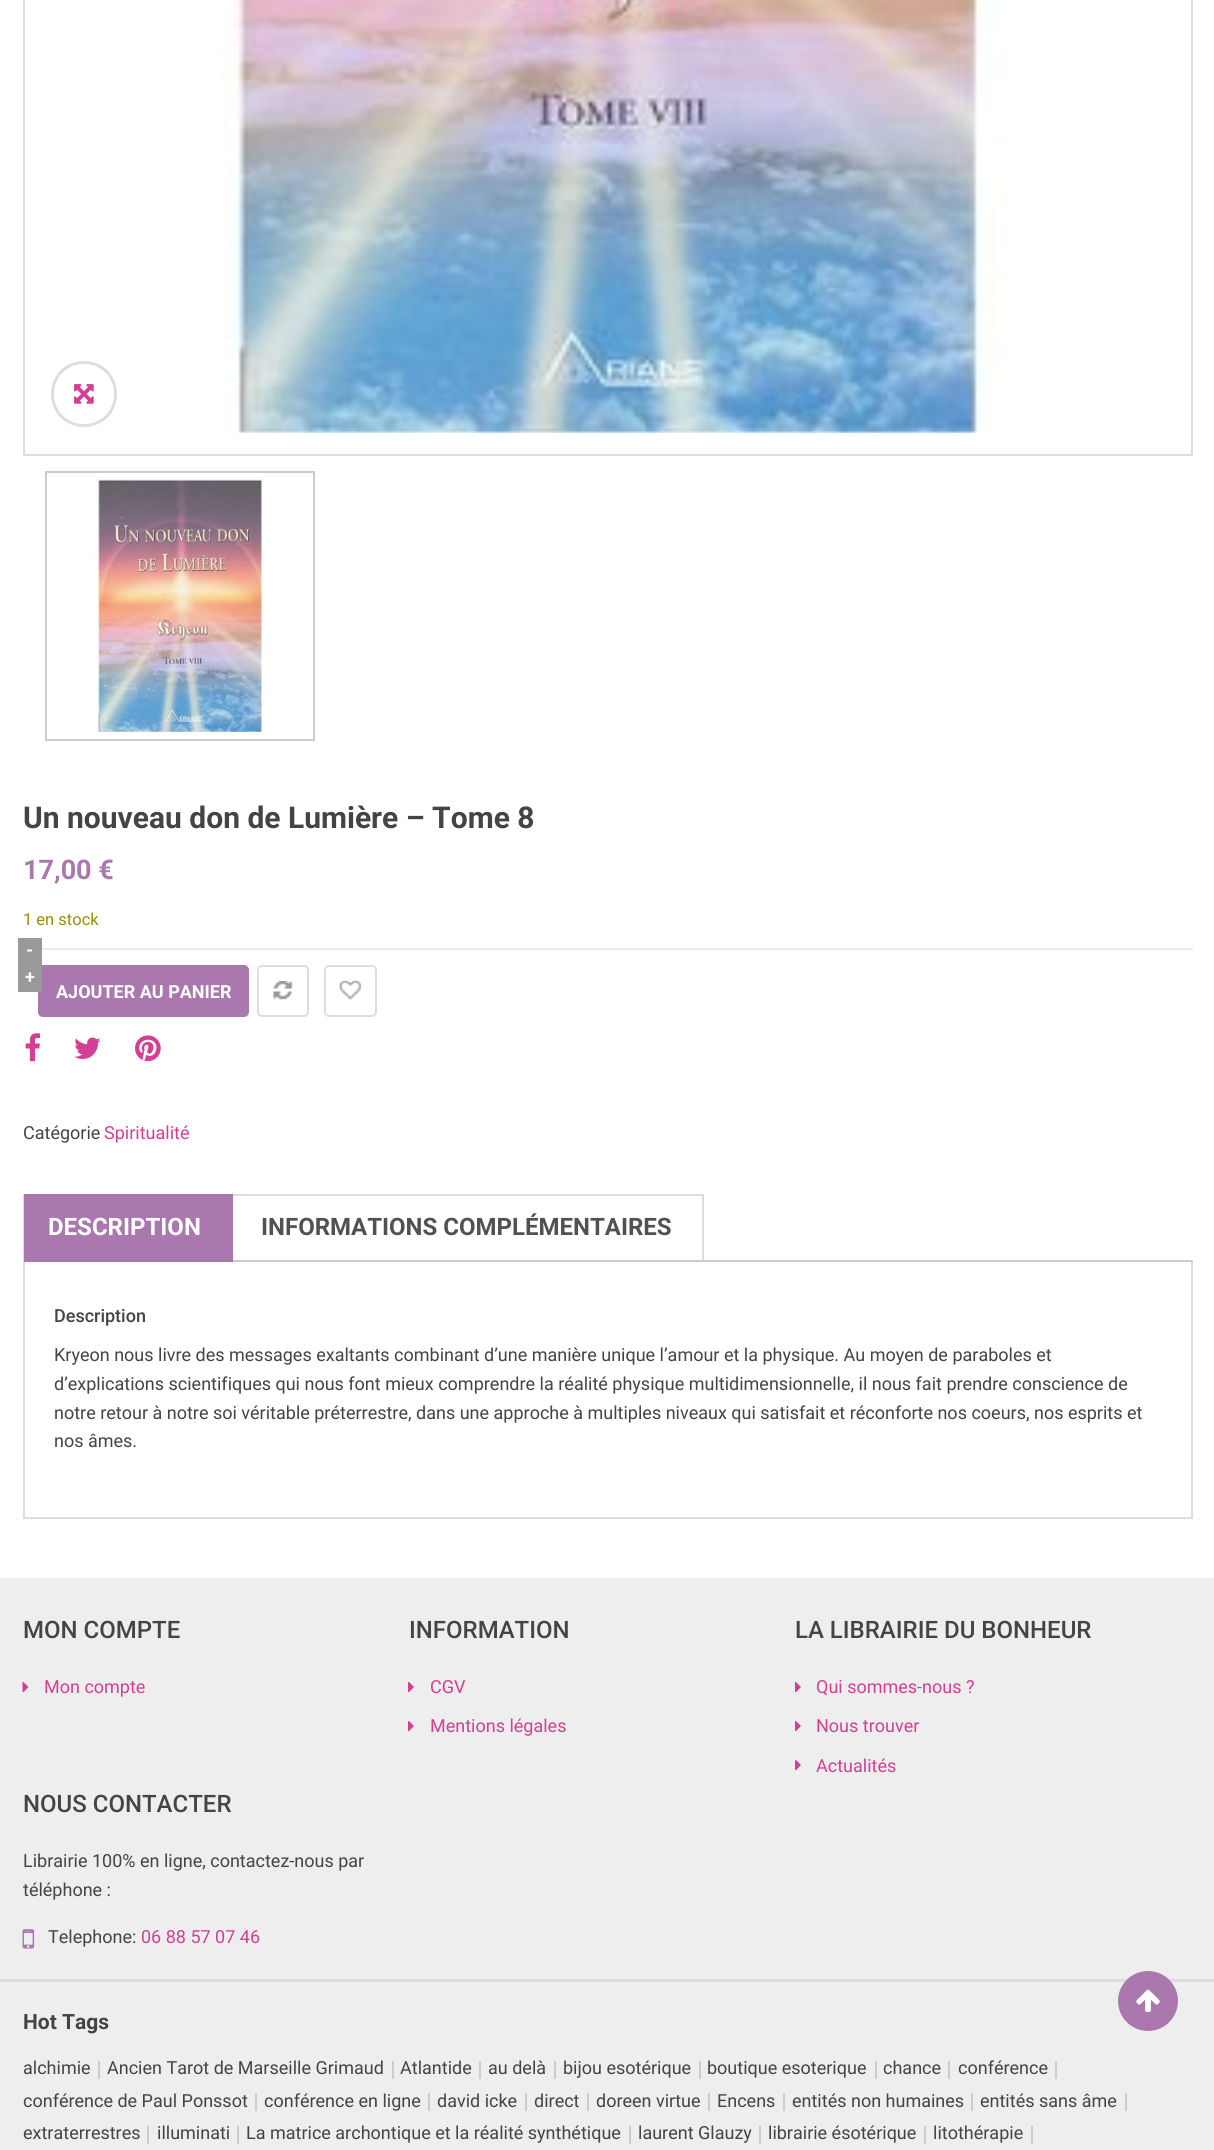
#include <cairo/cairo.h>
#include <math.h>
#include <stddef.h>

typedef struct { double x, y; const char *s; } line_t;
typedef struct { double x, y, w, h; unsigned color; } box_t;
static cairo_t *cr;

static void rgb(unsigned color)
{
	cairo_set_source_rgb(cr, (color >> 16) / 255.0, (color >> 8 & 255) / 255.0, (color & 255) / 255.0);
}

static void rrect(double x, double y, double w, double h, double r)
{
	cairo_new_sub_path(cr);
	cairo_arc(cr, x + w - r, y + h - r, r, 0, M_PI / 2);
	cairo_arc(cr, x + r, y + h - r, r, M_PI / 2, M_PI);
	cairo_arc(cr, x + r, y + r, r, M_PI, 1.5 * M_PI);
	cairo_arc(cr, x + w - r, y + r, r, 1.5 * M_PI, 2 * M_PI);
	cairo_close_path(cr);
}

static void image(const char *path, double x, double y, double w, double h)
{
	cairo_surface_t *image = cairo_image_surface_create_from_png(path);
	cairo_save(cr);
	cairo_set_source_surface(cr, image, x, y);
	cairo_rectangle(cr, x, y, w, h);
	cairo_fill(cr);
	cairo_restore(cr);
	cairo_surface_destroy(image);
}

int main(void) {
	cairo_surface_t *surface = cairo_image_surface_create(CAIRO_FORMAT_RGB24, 1214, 2150);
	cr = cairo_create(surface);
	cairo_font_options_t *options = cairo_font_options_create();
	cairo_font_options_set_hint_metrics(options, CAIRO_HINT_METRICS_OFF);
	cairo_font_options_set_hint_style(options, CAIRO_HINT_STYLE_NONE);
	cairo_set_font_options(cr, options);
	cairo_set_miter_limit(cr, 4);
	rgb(0xffffff);
	cairo_paint(cr);
	cairo_rectangle(cr, 24, -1, 1168, 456);
	rgb(0xdddddd);
	cairo_stroke(cr);
	cairo_new_path(cr);
	cairo_move_to(cr, 61.5, 371.5);
	cairo_curve_to(cr, 74, 359.5, 94, 359.5, 106.5, 371.5);
	cairo_curve_to(cr, 118.5, 384, 118.5, 404, 106.5, 416.5);
	cairo_curve_to(cr, 94, 428.5, 74, 428.5, 61.5, 416.5);
	cairo_curve_to(cr, 49.5, 404, 49.5, 384, 61.5, 371.5);
	cairo_close_path(cr);
	cairo_set_line_width(cr, 3);
	cairo_stroke(cr);
	rgb(0xffffff);
	cairo_new_path(cr);
	cairo_move_to(cr, 63, 373);
	cairo_curve_to(cr, 75, 361, 93, 361, 105, 373);
	cairo_curve_to(cr, 117, 385, 117, 404, 105, 415);
	cairo_curve_to(cr, 93, 427, 75, 427, 63, 415);
	cairo_curve_to(cr, 51, 404, 51, 385, 63, 373);
	cairo_close_path(cr);
	cairo_fill(cr);
	image("img/1.png", 74, 384, 20, 20);
	image("img/2.png", 222, 0, 785, 433);
	cairo_rectangle(cr, 46, 472, 268, 268);
	rgb(0xcccccc);
	cairo_set_line_width(cr, 2);
	cairo_stroke(cr);
	image("img/3.png", 94, 479, 175, 253);
	rgb(0xebebeb);
	cairo_rectangle(cr, 42, 948, 1151, 2);
	cairo_fill(cr);
	rgb(0xaa78ae);
	rrect(39, 966, 209, 50, 4);
	cairo_fill_preserve(cr);
	cairo_stroke(cr);
	rgb(0x999999);
	cairo_rectangle(cr, 18, 938, 24, 54);
	cairo_fill(cr);
	image("img/4.png", 272, 981, 22, 19);
	rrect(258, 966, 50, 50, 4);
	rgb(0xdddddd);
	cairo_stroke(cr);
	image("img/5.png", 339, 980, 23, 20);
	rrect(325, 966, 51, 50, 4);
	cairo_stroke(cr);
	image("img/6.png", 25, 1033, 16, 29);
	image("img/7.png", 74, 1037, 27, 22);
	image("img/8.png", 135, 1035, 26, 27);
	cairo_rectangle(cr, 23, 1194, 1, 68);
	cairo_fill(cr);
	cairo_rectangle(cr, 230, 1194, 474, 2);
	cairo_fill(cr);
	cairo_save(cr);
	cairo_rectangle(cr, 24, 1194, 1169, 68);
	cairo_clip(cr);
	cairo_rectangle(cr, 18, 1195, 214, 66);
	rgb(0xaa78ae);
	cairo_stroke(cr);
	cairo_restore(cr);
	{
		static const box_t items[] = {
			{24, 1196, 207, 64, 0xaa78ae},
			{702, 1194, 2, 68, 0xdddddd},
			{233, 1260, 960, 2, 0xcfc8d8},
			{1191, 1262, 2, 256, 0xdddddd},
			{23, 1517, 1170, 2, 0xdddddd},
			{23, 1262, 2, 256, 0xdddddd},
			{0, 1578, 1214, 401, 0xeeeeee},
		};
		for (size_t i = 0; i < sizeof items / sizeof *items; i++) {
			rgb(items[i].color);
			cairo_rectangle(cr, items[i].x, items[i].y, items[i].w, items[i].h);
			cairo_fill(cr);
		}
	}
	image("img/9.png", 22, 1682, 7, 11);
	image("img/10.png", 408, 1682, 6, 11);
	image("img/10.png", 408, 1721, 6, 11);
	image("img/10.png", 795, 1682, 6, 11);
	image("img/10.png", 795, 1721, 6, 11);
	image("img/10.png", 795, 1760, 6, 11);
	image("img/11.png", 22, 1929, 13, 20);
	{
		static const box_t items[] = {
			{0, 1979, 1214, 3, 0xdddddd},
			{0, 1982, 1214, 168, 0xeeeeee},
			{98, 2061, 2, 18, 0xcccccc},
			{392, 2061, 2, 18, 0xcccccc},
			{479, 2061, 2, 18, 0xcccccc},
			{554, 2061, 2, 18, 0xcccccc},
			{699, 2061, 2, 18, 0xcccccc},
			{875, 2061, 2, 18, 0xcccccc},
			{948, 2061, 2, 18, 0xcccccc},
			{1055, 2061, 2, 18, 0xcccccc},
			{255, 2093, 2, 18, 0xcccccc},
			{428, 2093, 2, 18, 0xcccccc},
			{525, 2093, 2, 18, 0xcccccc},
			{587, 2093, 2, 18, 0xcccccc},
			{708, 2093, 2, 18, 0xcccccc},
			{783, 2093, 2, 18, 0xcccccc},
			{971, 2093, 2, 18, 0xcccccc},
			{1125, 2093, 2, 18, 0xcccccc},
			{147, 2126, 2, 18, 0xcccccc},
			{237, 2126, 2, 18, 0xcccccc},
			{629, 2126, 2, 18, 0xcccccc},
			{759, 2126, 2, 18, 0xcccccc},
			{924, 2126, 2, 18, 0xcccccc},
			{1031, 2126, 2, 18, 0xcccccc},
		};
		for (size_t i = 0; i < sizeof items / sizeof *items; i++) {
			rgb(items[i].color);
			cairo_rectangle(cr, items[i].x, items[i].y, items[i].w, items[i].h);
			cairo_fill(cr);
		}
	}
	rgb(0xaa78ae);
	cairo_arc(cr, 1148, 2001, 30, 0, 2 * M_PI);
	cairo_fill(cr);
	image("img/12.png", 1136, 1989, 24, 23);
	cairo_select_font_face(cr, "Roboto", CAIRO_FONT_SLANT_NORMAL, CAIRO_FONT_WEIGHT_BOLD);
	cairo_set_font_size(cr, 30);
	rgb(0x444444);
	cairo_move_to(cr, 23, 828);
	cairo_show_text(cr, "Un nouveau don de Lumière – Tome 8");
	cairo_set_font_size(cr, 27);
	rgb(0xaa78ae);
	cairo_move_to(cr, 23, 879);
	cairo_show_text(cr, "17,00 €");
	cairo_select_font_face(cr, "Roboto", CAIRO_FONT_SLANT_NORMAL, CAIRO_FONT_WEIGHT_NORMAL);
	cairo_set_font_size(cr, 16.5);
	rgb(0x958e09);
	cairo_move_to(cr, 23, 925);
	cairo_show_text(cr, "1 en stock");
	cairo_select_font_face(cr, "Roboto", CAIRO_FONT_SLANT_NORMAL, CAIRO_FONT_WEIGHT_BOLD);
	cairo_set_font_size(cr, 18);
	rgb(0xffffff);
	{
		static const line_t items[] = {
			{26, 956, "-"},
			{25, 983, "+"},
			{56, 998, "AJOUTER AU PANIER"},
		};
		for (size_t i = 0; i < sizeof items / sizeof *items; i++) {
			cairo_move_to(cr, items[i].x, items[i].y);
			cairo_show_text(cr, items[i].s);
		}
	}
	cairo_select_font_face(cr, "Roboto", CAIRO_FONT_SLANT_NORMAL, CAIRO_FONT_WEIGHT_NORMAL);
	rgb(0x444444);
	cairo_move_to(cr, 23, 1139);
	cairo_show_text(cr, "Catégorie");
	rgb(0xd33f93);
	cairo_move_to(cr, 104, 1139);
	cairo_show_text(cr, "Spiritualité");
	cairo_select_font_face(cr, "Roboto", CAIRO_FONT_SLANT_NORMAL, CAIRO_FONT_WEIGHT_BOLD);
	cairo_set_font_size(cr, 24);
	rgb(0xffffff);
	cairo_move_to(cr, 48, 1235);
	cairo_show_text(cr, "DESCRIPTION");
	rgb(0x515151);
	cairo_move_to(cr, 261, 1235);
	cairo_show_text(cr, "INFORMATIONS COMPLÉMENTAIRES");
	cairo_select_font_face(cr, "Roboto Medium", CAIRO_FONT_SLANT_NORMAL, CAIRO_FONT_WEIGHT_NORMAL);
	cairo_set_font_size(cr, 18);
	rgb(0x444444);
	cairo_move_to(cr, 54, 1322);
	cairo_show_text(cr, "Description");
	cairo_select_font_face(cr, "Roboto", CAIRO_FONT_SLANT_NORMAL, CAIRO_FONT_WEIGHT_NORMAL);
	{
		static const line_t items[] = {
			{54, 1361, "Kryeon nous livre des messages exaltants combinant d’une manière unique l’amour et la physique. Au moyen de paraboles et"},
			{54, 1390, "d’explications scientifiques qui nous font mieux comprendre la réalité physique multidimensionnelle, il nous fait prendre conscience de"},
			{54, 1419, "notre retour à notre soi véritable préterrestre, dans une approche à multiples niveaux qui satisfait et réconforte nos coeurs, nos esprits et"},
			{54, 1447, "nos âmes."},
		};
		for (size_t i = 0; i < sizeof items / sizeof *items; i++) {
			cairo_move_to(cr, items[i].x, items[i].y);
			cairo_show_text(cr, items[i].s);
		}
	}
	cairo_select_font_face(cr, "Roboto Medium", CAIRO_FONT_SLANT_NORMAL, CAIRO_FONT_WEIGHT_NORMAL);
	cairo_set_font_size(cr, 24);
	cairo_move_to(cr, 23, 1638);
	cairo_show_text(cr, "MON COMPTE");
	cairo_select_font_face(cr, "Roboto", CAIRO_FONT_SLANT_NORMAL, CAIRO_FONT_WEIGHT_NORMAL);
	cairo_set_font_size(cr, 18);
	rgb(0xd33f93);
	cairo_move_to(cr, 44, 1693);
	cairo_show_text(cr, "Mon compte");
	cairo_select_font_face(cr, "Roboto Medium", CAIRO_FONT_SLANT_NORMAL, CAIRO_FONT_WEIGHT_NORMAL);
	cairo_set_font_size(cr, 24);
	rgb(0x444444);
	cairo_move_to(cr, 409, 1638);
	cairo_show_text(cr, "INFORMATION");
	cairo_select_font_face(cr, "Roboto", CAIRO_FONT_SLANT_NORMAL, CAIRO_FONT_WEIGHT_NORMAL);
	cairo_set_font_size(cr, 18);
	rgb(0xd33f93);
	cairo_move_to(cr, 430, 1693);
	cairo_show_text(cr, "CGV");
	cairo_move_to(cr, 430, 1732);
	cairo_show_text(cr, "Mentions légales");
	cairo_select_font_face(cr, "Roboto Medium", CAIRO_FONT_SLANT_NORMAL, CAIRO_FONT_WEIGHT_NORMAL);
	cairo_set_font_size(cr, 24);
	rgb(0x444444);
	cairo_move_to(cr, 795, 1638);
	cairo_show_text(cr, "LA LIBRAIRIE DU BONHEUR");
	cairo_select_font_face(cr, "Roboto", CAIRO_FONT_SLANT_NORMAL, CAIRO_FONT_WEIGHT_NORMAL);
	cairo_set_font_size(cr, 18);
	rgb(0xd33f93);
	{
		static const line_t items[] = {
			{816, 1693, "Qui sommes-nous ?"},
			{816, 1732, "Nous trouver"},
			{816, 1772, "Actualités"},
		};
		for (size_t i = 0; i < sizeof items / sizeof *items; i++) {
			cairo_move_to(cr, items[i].x, items[i].y);
			cairo_show_text(cr, items[i].s);
		}
	}
	cairo_select_font_face(cr, "Roboto Medium", CAIRO_FONT_SLANT_NORMAL, CAIRO_FONT_WEIGHT_NORMAL);
	cairo_set_font_size(cr, 24);
	rgb(0x444444);
	cairo_move_to(cr, 23, 1812);
	cairo_show_text(cr, "NOUS CONTACTER");
	cairo_select_font_face(cr, "Roboto", CAIRO_FONT_SLANT_NORMAL, CAIRO_FONT_WEIGHT_NORMAL);
	cairo_set_font_size(cr, 18);
	{
		static const line_t items[] = {
			{23, 1867, "Librairie 100% en ligne, contactez-nous par"},
			{23, 1896, "téléphone :"},
			{48, 1943, "Telephone:"},
		};
		for (size_t i = 0; i < sizeof items / sizeof *items; i++) {
			cairo_move_to(cr, items[i].x, items[i].y);
			cairo_show_text(cr, items[i].s);
		}
	}
	rgb(0xd33f93);
	cairo_move_to(cr, 141, 1943);
	cairo_show_text(cr, "06 88 57 07 46");
	cairo_select_font_face(cr, "Roboto", CAIRO_FONT_SLANT_NORMAL, CAIRO_FONT_WEIGHT_BOLD);
	cairo_set_font_size(cr, 21);
	rgb(0x444444);
	cairo_move_to(cr, 23, 2029);
	cairo_show_text(cr, "Hot Tags");
	cairo_select_font_face(cr, "Roboto", CAIRO_FONT_SLANT_NORMAL, CAIRO_FONT_WEIGHT_NORMAL);
	cairo_set_font_size(cr, 18);
	{
		static const line_t items[] = {
			{23, 2074, "alchimie"},
			{107, 2074, "Ancien Tarot de Marseille Grimaud"},
			{400, 2074, "Atlantide"},
			{488, 2074, "au delà"},
			{563, 2074, "bijou esotérique"},
			{707, 2074, "boutique esoterique"},
			{883, 2074, "chance"},
			{958, 2074, "conférence"},
			{23, 2107, "conférence de Paul Ponssot"},
			{264, 2107, "conférence en ligne"},
			{437, 2107, "david icke"},
			{534, 2107, "direct"},
			{596, 2107, "doreen virtue"},
			{717, 2107, "Encens"},
			{792, 2107, "entités non humaines"},
			{980, 2107, "entités sans âme"},
			{23, 2139, "extraterrestres"},
			{157, 2139, "illuminati"},
			{246, 2139, "La matrice archontique et la réalité synthétique"},
			{638, 2139, "laurent Glauzy"},
			{768, 2139, "librairie ésotérique"},
			{933, 2139, "litothérapie"},
		};
		for (size_t i = 0; i < sizeof items / sizeof *items; i++) {
			cairo_move_to(cr, items[i].x, items[i].y);
			cairo_show_text(cr, items[i].s);
		}
	}
	cairo_surface_write_to_png(surface, "page.png");
	cairo_font_options_destroy(options);
	cairo_destroy(cr);
	cairo_surface_destroy(surface);
	return 0;
}
